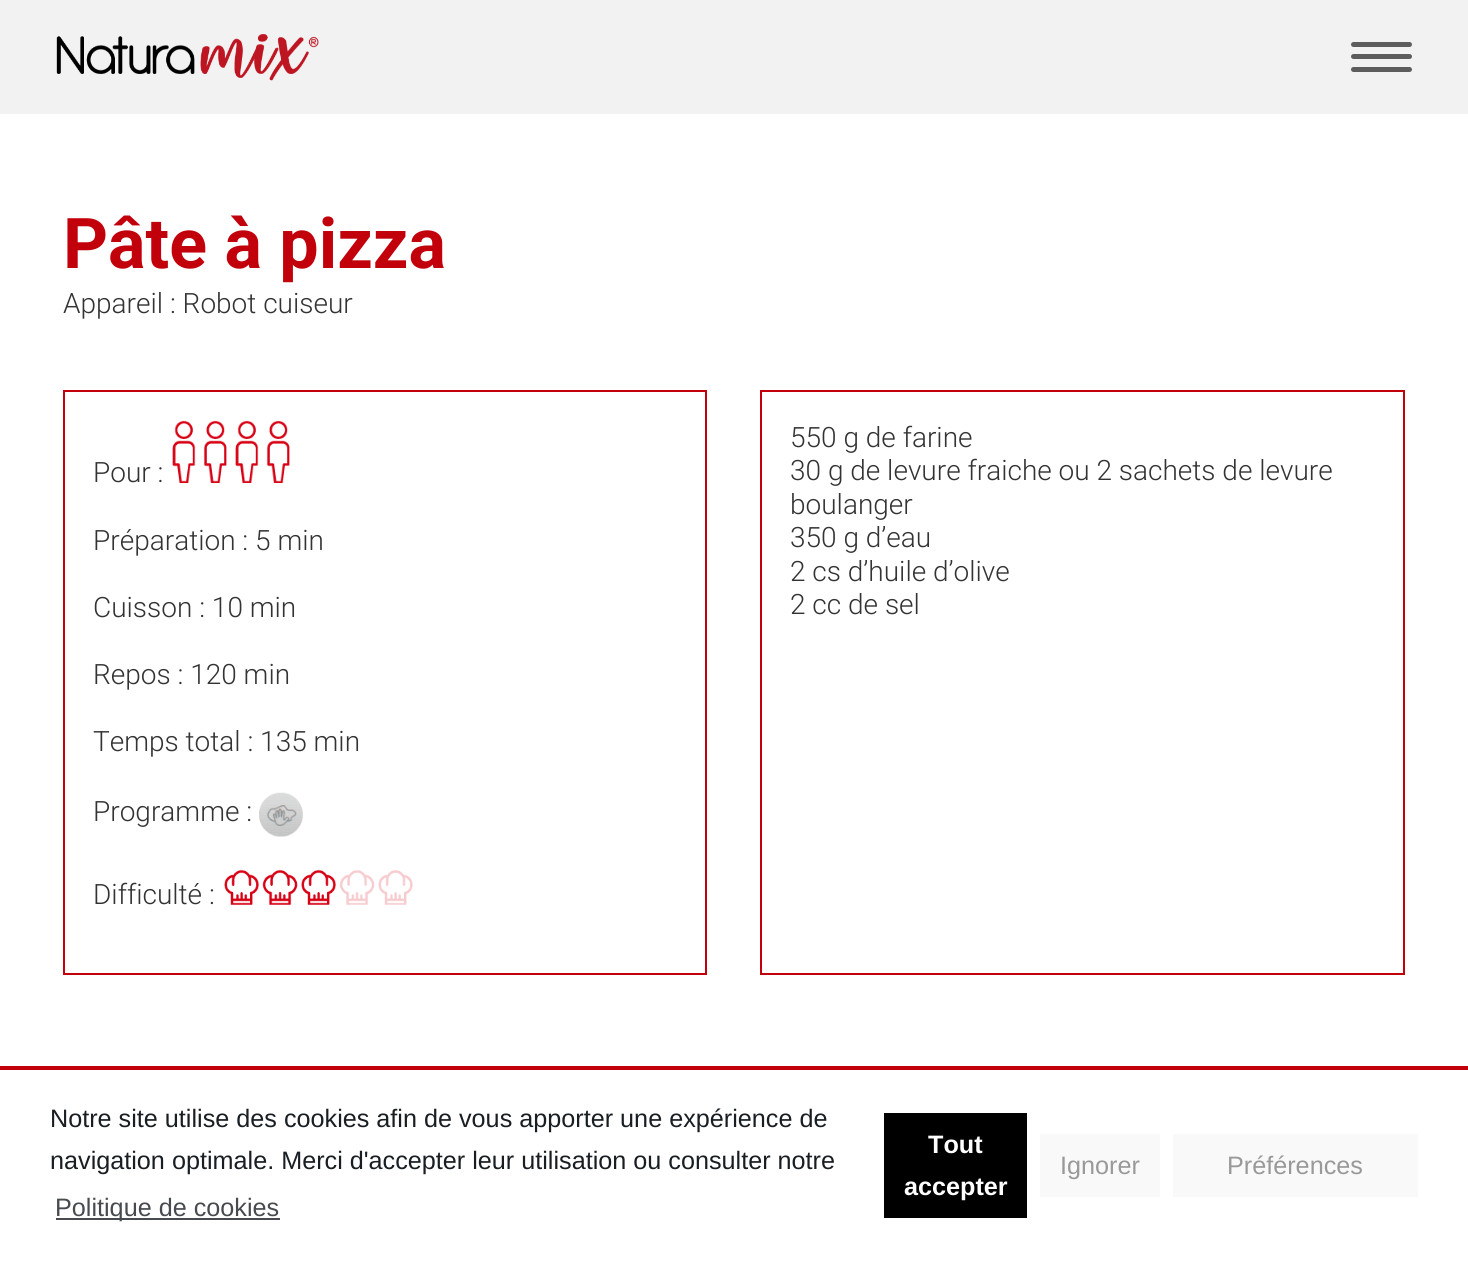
#include <cairo/cairo.h>
#include <math.h>
#include <stddef.h>

typedef struct { double x, y; const char *s; } line_t;
typedef struct { double x, y, w, h; unsigned color; } box_t;
static cairo_t *cr;

static void rgb(unsigned color)
{
	cairo_set_source_rgb(cr, (color >> 16) / 255.0, (color >> 8 & 255) / 255.0, (color & 255) / 255.0);
}

static void rrect(double x, double y, double w, double h, double r)
{
	cairo_new_sub_path(cr);
	cairo_arc(cr, x + w - r, y + h - r, r, 0, M_PI / 2);
	cairo_arc(cr, x + r, y + h - r, r, M_PI / 2, M_PI);
	cairo_arc(cr, x + r, y + r, r, M_PI, 1.5 * M_PI);
	cairo_arc(cr, x + w - r, y + r, r, 1.5 * M_PI, 2 * M_PI);
	cairo_close_path(cr);
}

static void image(const char *path, double x, double y, double w, double h)
{
	cairo_surface_t *image = cairo_image_surface_create_from_png(path);
	cairo_save(cr);
	cairo_set_source_surface(cr, image, x, y);
	cairo_rectangle(cr, x, y, w, h);
	cairo_fill(cr);
	cairo_restore(cr);
	cairo_surface_destroy(image);
}

int main(void) {
	cairo_surface_t *surface = cairo_image_surface_create(CAIRO_FORMAT_RGB24, 1468, 1261);
	cr = cairo_create(surface);
	cairo_font_options_t *options = cairo_font_options_create();
	cairo_font_options_set_hint_metrics(options, CAIRO_HINT_METRICS_OFF);
	cairo_font_options_set_hint_style(options, CAIRO_HINT_STYLE_NONE);
	cairo_set_font_options(cr, options);
	cairo_set_miter_limit(cr, 4);
	rgb(0xffffff);
	cairo_paint(cr);
	rgb(0xf2f2f2);
	cairo_rectangle(cr, 0, 0, 1468, 114);
	cairo_fill(cr);
	image("img/1.png", 56, 34, 263, 47);
	rgb(0x5d5d5d);
	rrect(1351, 42, 61, 5, 2.5);
	cairo_fill(cr);
	rrect(1351, 54, 61, 5, 2.5);
	cairo_fill(cr);
	rrect(1351, 67, 61, 5, 2.5);
	cairo_fill(cr);
	cairo_rectangle(cr, 64, 391, 642, 583);
	rgb(0xc2000b);
	cairo_stroke(cr);
	image("img/2.png", 172, 420, 24, 63);
	image("img/3.png", 203, 420, 24, 63);
	image("img/2.png", 235, 420, 24, 63);
	image("img/3.png", 266, 420, 24, 63);
	image("img/4.png", 259, 792, 44, 45);
	image("img/5.png", 224, 869, 35, 36);
	image("img/6.png", 262, 869, 36, 36);
	image("img/5.png", 301, 869, 35, 36);
	image("img/7.png", 339, 870, 36, 35);
	image("img/8.png", 378, 870, 35, 35);
	cairo_rectangle(cr, 761, 391, 643, 583);
	cairo_stroke(cr);
	{
		static const box_t items[] = {
			{0, 1066, 1468, 4, 0xc2000b},
			{56, 1218, 224, 2, 0x474b4f},
			{884, 1113, 143, 105, 0x000000},
			{1040, 1134, 120, 63, 0xf9f9f9},
			{1173, 1134, 245, 63, 0xf9f9f9},
		};
		for (size_t i = 0; i < sizeof items / sizeof *items; i++) {
			rgb(items[i].color);
			cairo_rectangle(cr, items[i].x, items[i].y, items[i].w, items[i].h);
			cairo_fill(cr);
		}
	}
	cairo_select_font_face(cr, "Roboto", CAIRO_FONT_SLANT_NORMAL, CAIRO_FONT_WEIGHT_BOLD);
	cairo_set_font_size(cr, 70);
	rgb(0xc2000b);
	cairo_move_to(cr, 63, 268);
	cairo_show_text(cr, "Pâte à pizza");
	cairo_select_font_face(cr, "Roboto Light", CAIRO_FONT_SLANT_NORMAL, CAIRO_FONT_WEIGHT_NORMAL);
	cairo_set_font_size(cr, 28);
	rgb(0x333333);
	{
		static const line_t items[] = {
			{63, 313, "Appareil : Robot cuiseur"},
			{93, 482, "Pour :"},
			{93, 550, "Préparation : 5 min"},
			{93, 617, "Cuisson : 10 min"},
			{93, 684, "Repos : 120 min"},
			{93, 751, "Temps total : 135 min"},
			{93, 821, "Programme :"},
			{93, 904, "Difficulté :"},
			{790, 447, "550 g de farine"},
			{790, 480, "30 g de levure fraiche ou 2 sachets de levure"},
			{790, 514, "boulanger"},
			{790, 547, "350 g d’eau"},
			{790, 581, "2 cs d’huile d’olive"},
			{790, 614, "2 cc de sel"},
		};
		for (size_t i = 0; i < sizeof items / sizeof *items; i++) {
			cairo_move_to(cr, items[i].x, items[i].y);
			cairo_show_text(cr, items[i].s);
		}
	}
	cairo_select_font_face(cr, "Liberation Sans", CAIRO_FONT_SLANT_NORMAL, CAIRO_FONT_WEIGHT_NORMAL);
	cairo_set_font_size(cr, 25.2);
	rgb(0x191e23);
	cairo_move_to(cr, 50, 1127);
	cairo_show_text(cr, "Notre site utilise des cookies afin de vous apporter une expérience de");
	cairo_move_to(cr, 50, 1169);
	cairo_show_text(cr, "navigation optimale. Merci d'accepter leur utilisation ou consulter notre");
	rgb(0x474b4f);
	cairo_move_to(cr, 55, 1216);
	cairo_show_text(cr, "Politique de cookies");
	cairo_select_font_face(cr, "Liberation Sans", CAIRO_FONT_SLANT_NORMAL, CAIRO_FONT_WEIGHT_BOLD);
	rgb(0xffffff);
	cairo_move_to(cr, 928, 1153);
	cairo_show_text(cr, "Tout");
	cairo_move_to(cr, 904, 1195);
	cairo_show_text(cr, "accepter");
	cairo_select_font_face(cr, "Liberation Sans", CAIRO_FONT_SLANT_NORMAL, CAIRO_FONT_WEIGHT_NORMAL);
	rgb(0x999999);
	cairo_move_to(cr, 1060, 1174);
	cairo_show_text(cr, "Ignorer");
	cairo_move_to(cr, 1227, 1174);
	cairo_show_text(cr, "Préférences");
	cairo_surface_write_to_png(surface, "page.png");
	cairo_font_options_destroy(options);
	cairo_destroy(cr);
	cairo_surface_destroy(surface);
	return 0;
}
